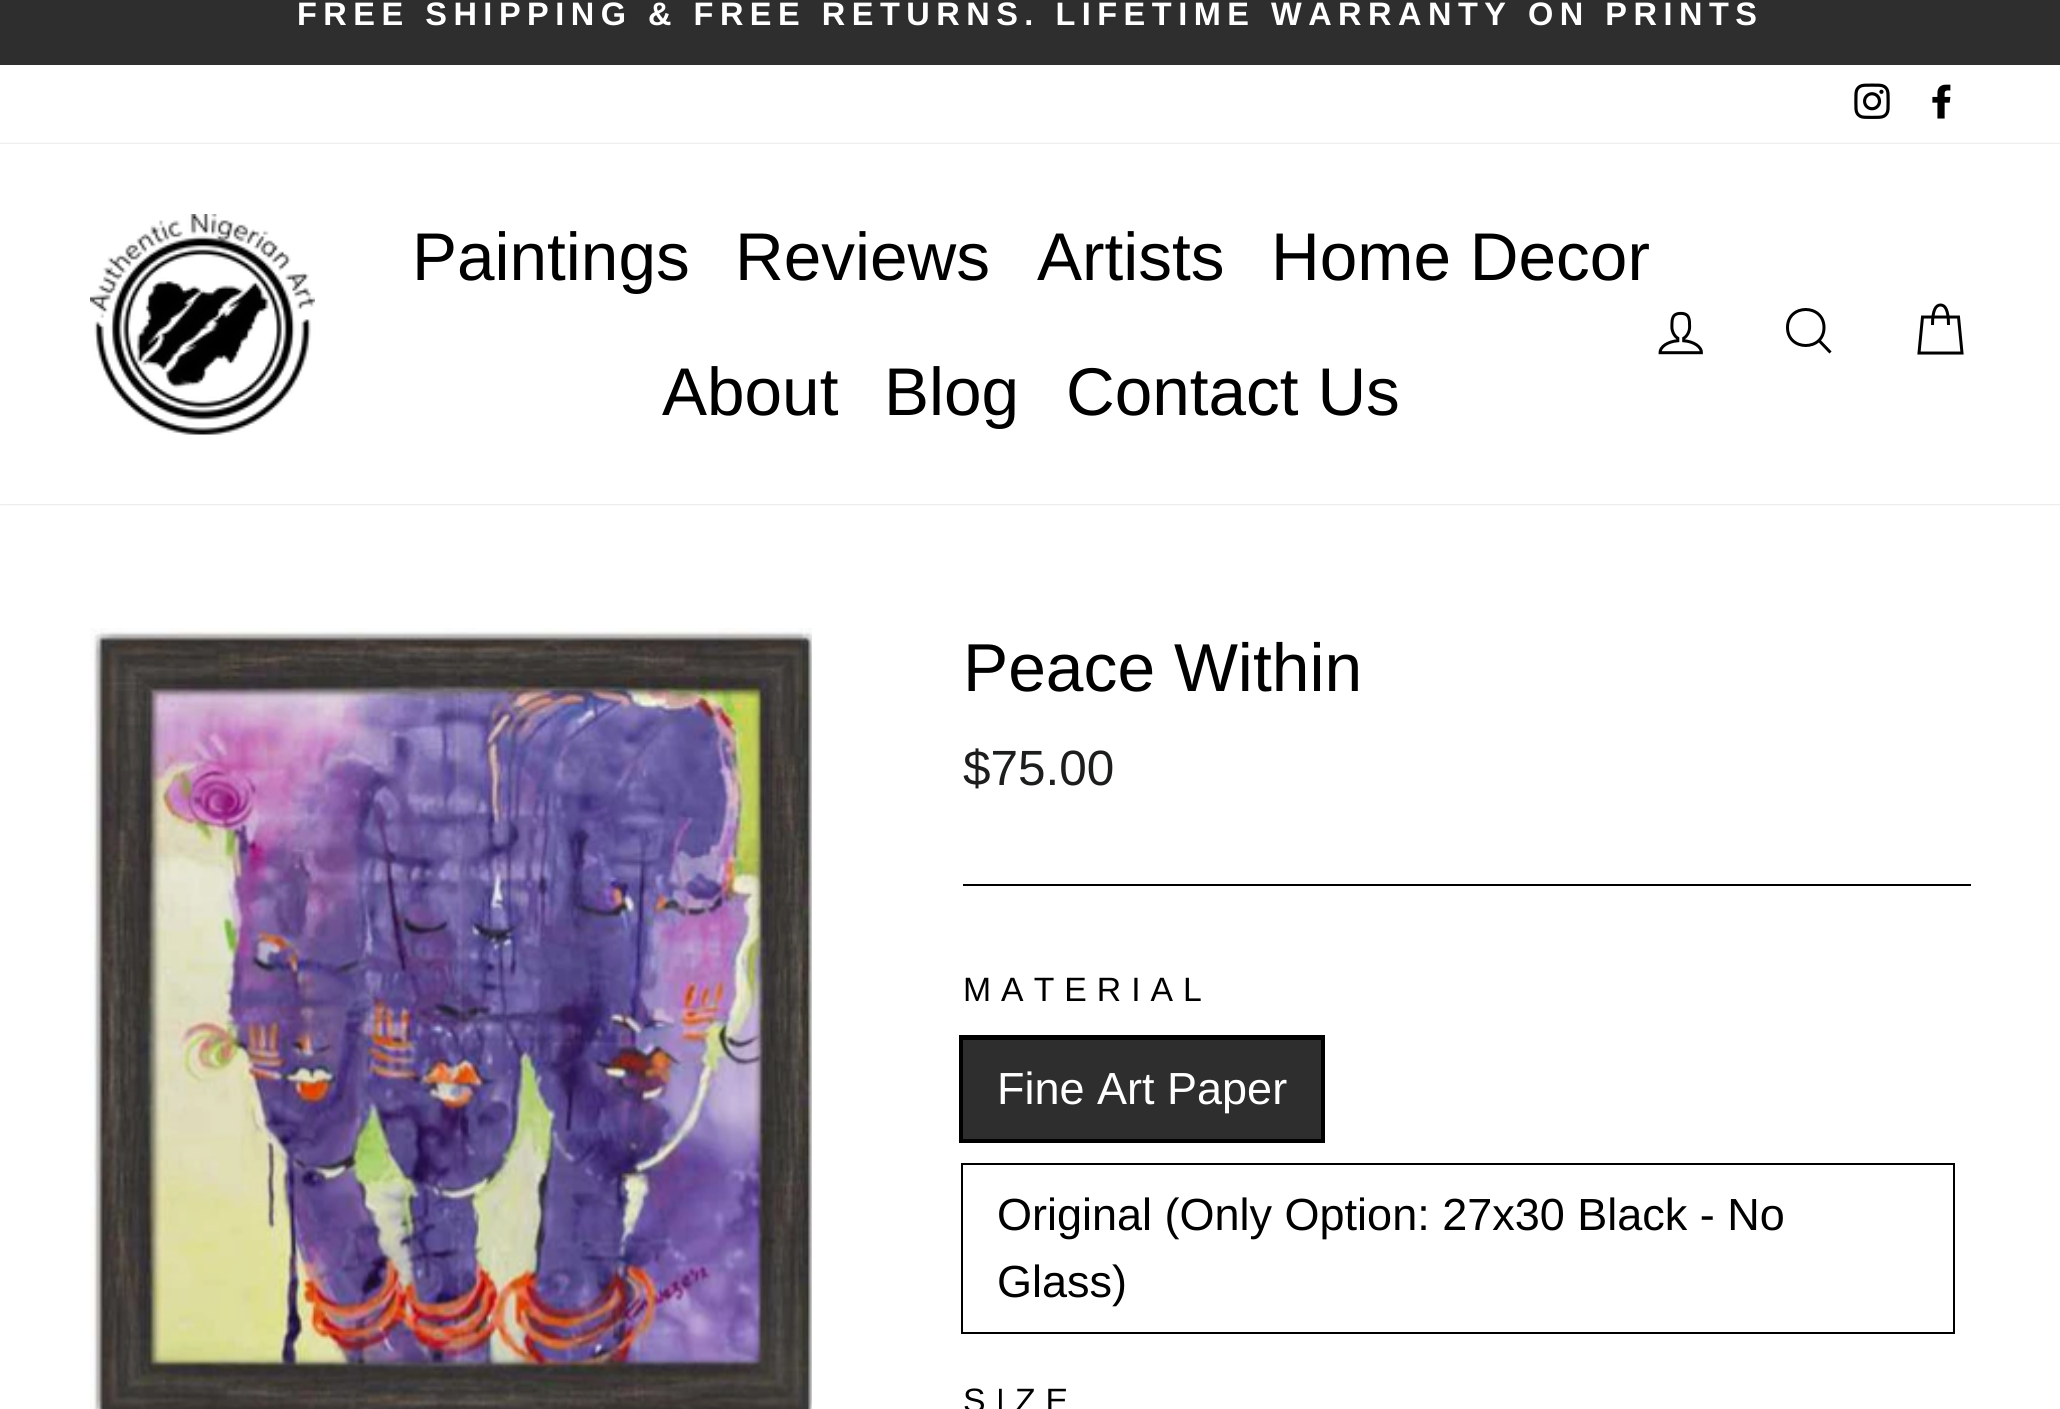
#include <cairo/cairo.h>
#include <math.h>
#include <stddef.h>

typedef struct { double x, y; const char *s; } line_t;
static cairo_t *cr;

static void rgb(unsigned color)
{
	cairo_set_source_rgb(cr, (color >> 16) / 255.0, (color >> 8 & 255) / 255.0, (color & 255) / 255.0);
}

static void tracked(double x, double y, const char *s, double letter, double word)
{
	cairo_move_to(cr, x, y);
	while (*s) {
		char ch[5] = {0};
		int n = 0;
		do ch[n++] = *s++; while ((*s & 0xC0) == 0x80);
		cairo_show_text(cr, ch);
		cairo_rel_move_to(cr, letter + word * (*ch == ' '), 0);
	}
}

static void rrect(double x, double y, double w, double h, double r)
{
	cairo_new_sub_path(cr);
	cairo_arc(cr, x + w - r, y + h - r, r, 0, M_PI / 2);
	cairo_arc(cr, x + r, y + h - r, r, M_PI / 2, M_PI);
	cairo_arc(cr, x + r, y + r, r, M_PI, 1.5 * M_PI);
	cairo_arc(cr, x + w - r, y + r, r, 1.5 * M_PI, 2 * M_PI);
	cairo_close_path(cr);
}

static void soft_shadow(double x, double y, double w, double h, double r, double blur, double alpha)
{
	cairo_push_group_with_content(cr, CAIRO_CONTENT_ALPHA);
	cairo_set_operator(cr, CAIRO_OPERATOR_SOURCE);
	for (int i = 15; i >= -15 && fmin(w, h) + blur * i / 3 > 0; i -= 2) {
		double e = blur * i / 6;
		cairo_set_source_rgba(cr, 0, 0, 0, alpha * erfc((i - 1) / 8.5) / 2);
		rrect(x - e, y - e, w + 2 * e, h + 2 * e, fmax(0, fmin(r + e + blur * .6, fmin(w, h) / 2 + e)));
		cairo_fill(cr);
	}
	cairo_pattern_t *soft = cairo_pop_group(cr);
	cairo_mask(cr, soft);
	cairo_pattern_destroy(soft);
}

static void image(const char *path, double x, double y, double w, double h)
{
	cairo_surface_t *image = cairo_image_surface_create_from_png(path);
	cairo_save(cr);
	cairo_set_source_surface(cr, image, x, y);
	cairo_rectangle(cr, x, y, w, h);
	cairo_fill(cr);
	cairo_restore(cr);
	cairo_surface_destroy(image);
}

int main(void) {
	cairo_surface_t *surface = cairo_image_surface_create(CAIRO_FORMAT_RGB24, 2060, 1409);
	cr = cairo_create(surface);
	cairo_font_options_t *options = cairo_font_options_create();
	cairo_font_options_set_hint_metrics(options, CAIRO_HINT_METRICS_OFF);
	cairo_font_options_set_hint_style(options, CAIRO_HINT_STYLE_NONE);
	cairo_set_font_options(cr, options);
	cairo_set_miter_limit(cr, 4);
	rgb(0xffffff);
	cairo_paint(cr);
	rgb(0x2e2e2e);
	cairo_rectangle(cr, 0, 0, 2060, 65);
	cairo_fill(cr);
	image("img/1.png", 1854, 83, 36, 36);
	image("img/2.png", 1932, 84, 19, 35);
	cairo_save(cr);
	cairo_set_fill_rule(cr, CAIRO_FILL_RULE_EVEN_ODD);
	cairo_new_path(cr);
	cairo_move_to(cr, 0, 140);
	cairo_line_to(cr, 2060, 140);
	cairo_line_to(cr, 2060, 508);
	cairo_line_to(cr, 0, 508);
	cairo_close_path(cr);
	cairo_move_to(cr, 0, 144);
	cairo_line_to(cr, 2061, 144);
	cairo_line_to(cr, 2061, 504);
	cairo_line_to(cr, 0, 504);
	cairo_close_path(cr);
	cairo_clip(cr);
	rgb(0x000000);
	soft_shadow(0, 144, 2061, 360, 0, 1, 0.2);
	cairo_restore(cr);
	image("img/3.png", 90, 214, 225, 221);
	image("img/4.png", 1658, 311, 45, 44);
	cairo_new_path(cr);
	cairo_move_to(cr, 1824, 327.5);
	cairo_curve_to(cr, 1824, 351.5, 1787.5, 351.5, 1787.5, 327.5);
	cairo_curve_to(cr, 1787.5, 303.5, 1824, 303.5, 1824, 327.5);
	cairo_close_path(cr);
	cairo_move_to(cr, 1830.5, 352.5);
	cairo_line_to(cr, 1819, 340.5);
	rgb(0x000000);
	cairo_set_line_width(cr, 3);
	cairo_stroke(cr);
	cairo_new_path(cr);
	cairo_move_to(cr, 1932.5, 325);
	cairo_curve_to(cr, 1932.5, 309.5, 1936, 305, 1940.5, 305);
	cairo_curve_to(cr, 1945, 305, 1948.5, 309.5, 1948.5, 325);
	cairo_move_to(cr, 1922.5, 317);
	cairo_line_to(cr, 1958.5, 317);
	cairo_line_to(cr, 1962, 353);
	cairo_line_to(cr, 1919, 353);
	cairo_close_path(cr);
	cairo_stroke(cr);
	image("img/5.png", 90, 628, 722, 781);
	cairo_rectangle(cr, 963, 884, 1008, 2);
	cairo_fill(cr);
	cairo_rectangle(cr, 961.5, 1037.5, 361, 103);
	cairo_set_line_width(cr, 5);
	cairo_stroke(cr);
	rgb(0x2e2e2e);
	cairo_rectangle(cr, 963, 1040, 358, 99);
	cairo_fill(cr);
	cairo_rectangle(cr, 962, 1164, 992, 169);
	rgb(0x000000);
	cairo_set_line_width(cr, 2);
	cairo_stroke(cr);
	cairo_select_font_face(cr, "Liberation Sans", CAIRO_FONT_SLANT_NORMAL, CAIRO_FONT_WEIGHT_BOLD);
	cairo_set_font_size(cr, 32.5);
	rgb(0xffffff);
	tracked(297, 25, "FREE SHIPPING & FREE RETURNS. LIFETIME WARRANTY ON PRINTS", 6.5, 0);
	cairo_select_font_face(cr, "Liberation Sans", CAIRO_FONT_SLANT_NORMAL, CAIRO_FONT_WEIGHT_NORMAL);
	cairo_set_font_size(cr, 67.5);
	rgb(0x000000);
	{
		static const line_t items[] = {
			{412, 280, "Paintings"},
			{735, 280, "Reviews"},
			{1037, 280, "Artists"},
			{1271, 280, "Home Decor"},
			{662, 415, "About"},
			{884, 415, "Blog"},
			{1066, 415, "Contact Us"},
		};
		for (size_t i = 0; i < sizeof items / sizeof *items; i++) {
			cairo_move_to(cr, items[i].x, items[i].y);
			cairo_show_text(cr, items[i].s);
		}
	}
	cairo_set_font_size(cr, 67.75);
	cairo_move_to(cr, 963, 691);
	cairo_show_text(cr, "Peace Within");
	cairo_set_font_size(cr, 49.5);
	rgb(0x1c1d1d);
	cairo_move_to(cr, 963, 785);
	cairo_show_text(cr, "$75.00");
	cairo_set_font_size(cr, 33.75);
	rgb(0x000000);
	tracked(963, 1001, "MATERIAL", 10, 0);
	cairo_set_font_size(cr, 45);
	rgb(0xffffff);
	cairo_move_to(cr, 997, 1104);
	cairo_show_text(cr, "Fine Art Paper");
	rgb(0x000000);
	cairo_move_to(cr, 997, 1230);
	cairo_show_text(cr, "Original (Only Option: 27x30 Black - No");
	cairo_move_to(cr, 997, 1297);
	cairo_show_text(cr, "Glass)");
	cairo_set_font_size(cr, 33.75);
	tracked(963, 1412, "SIZE", 10, 0);
	cairo_surface_write_to_png(surface, "page.png");
	cairo_font_options_destroy(options);
	cairo_destroy(cr);
	cairo_surface_destroy(surface);
	return 0;
}
